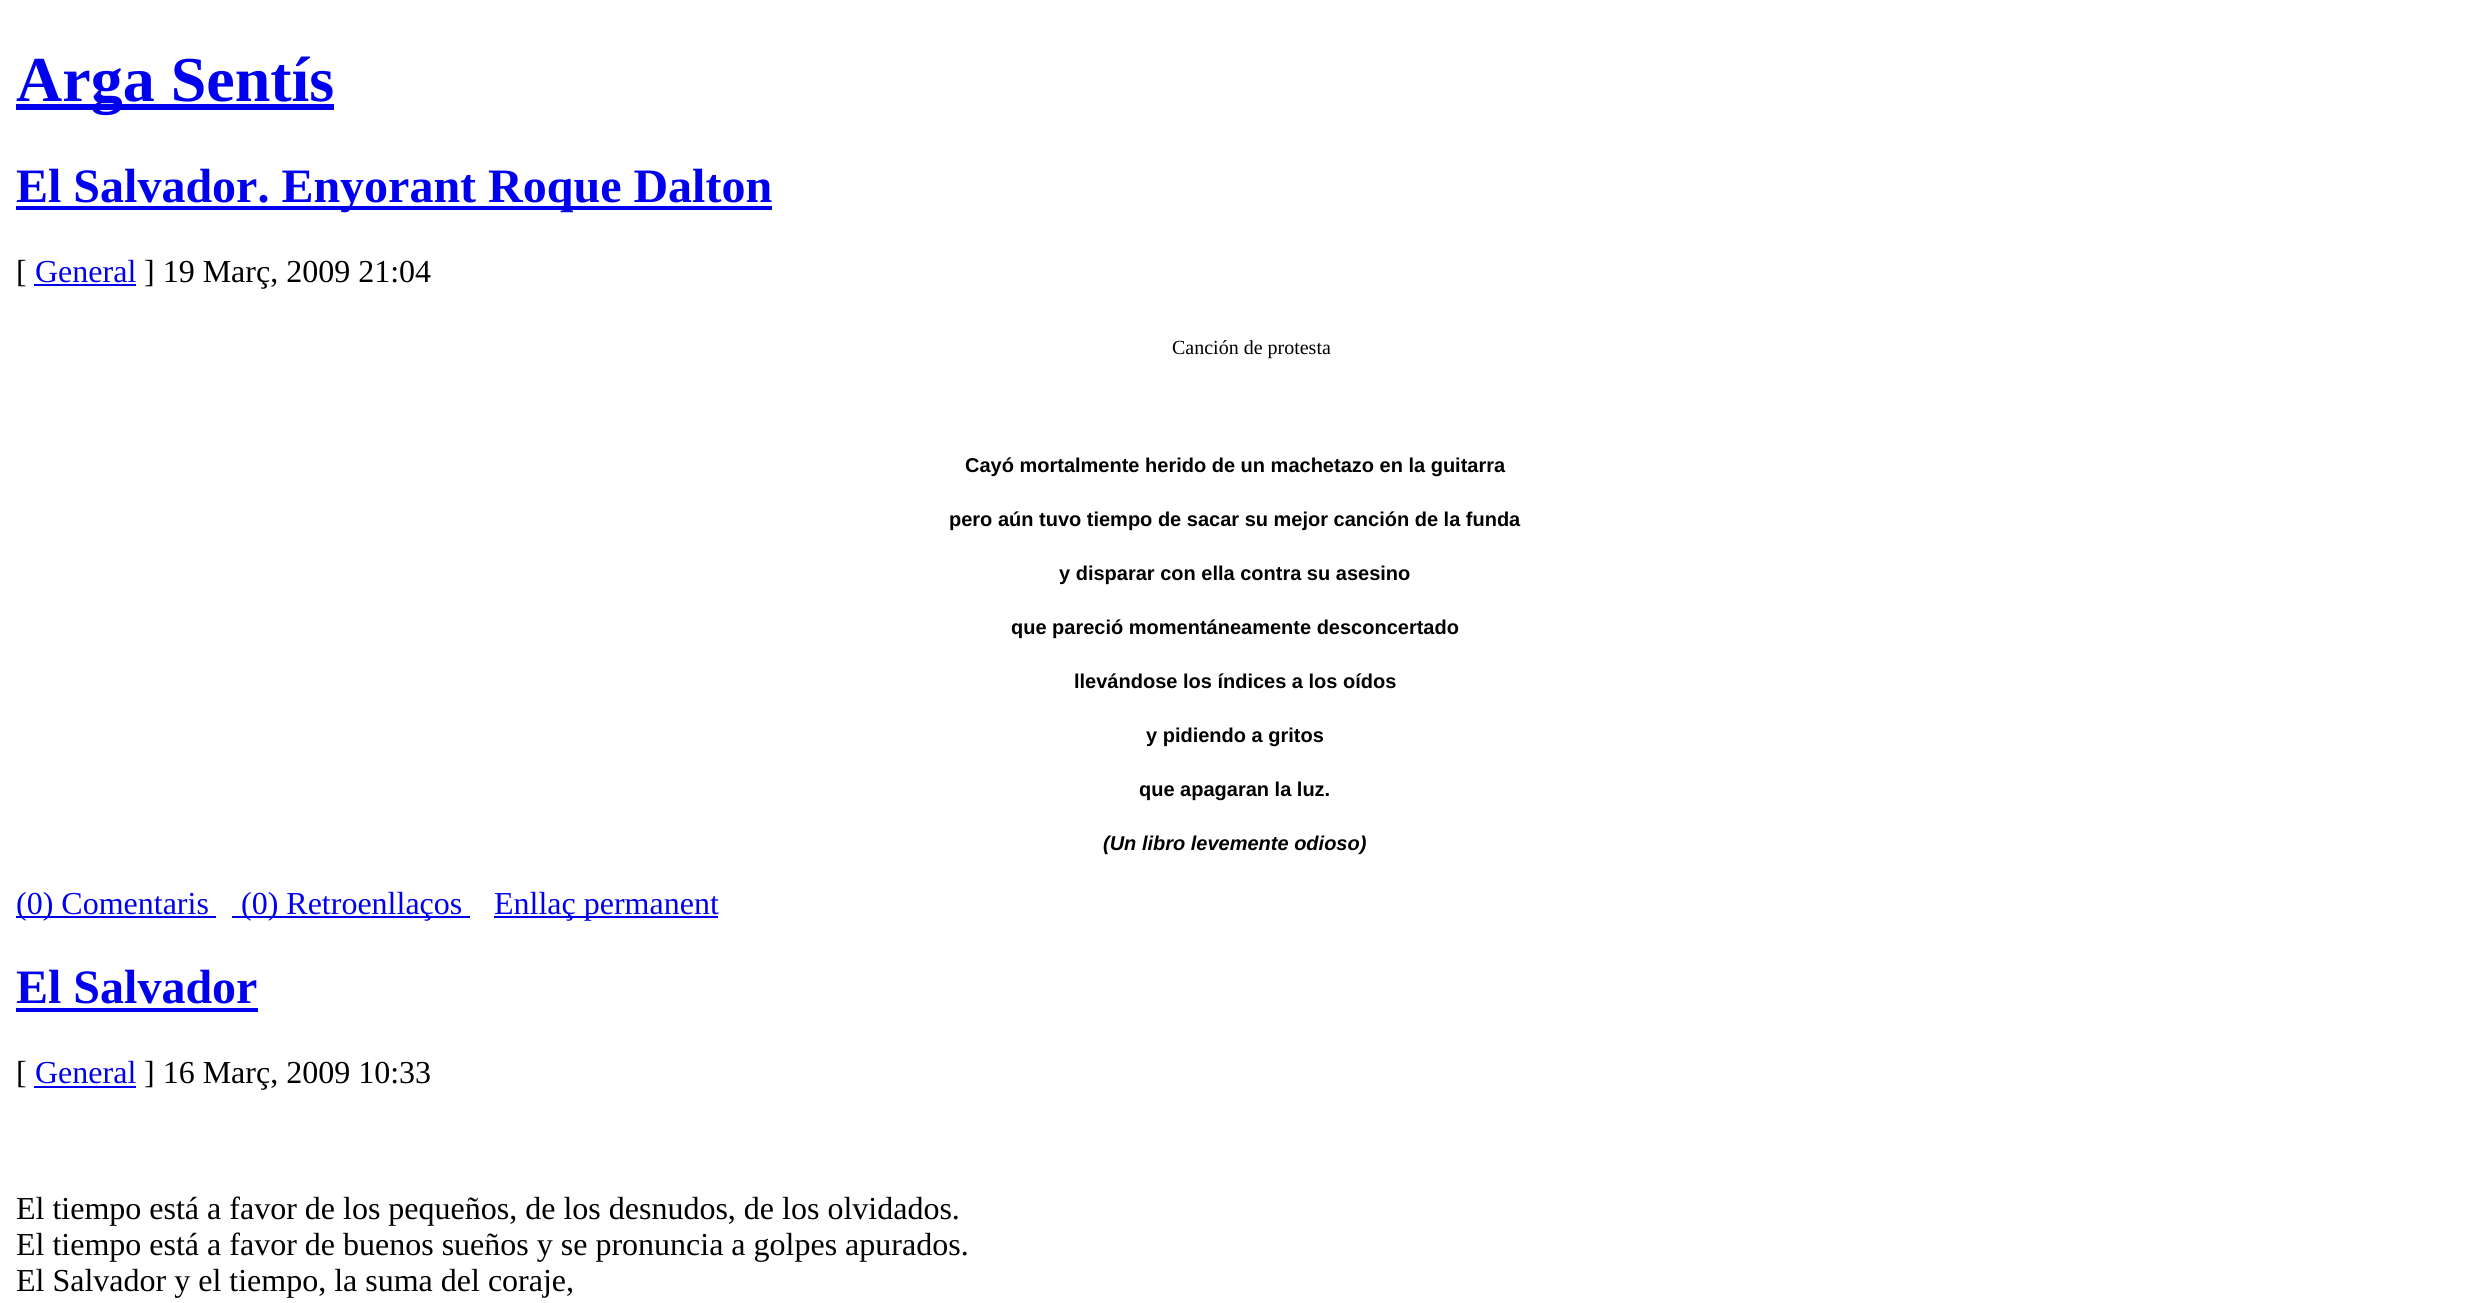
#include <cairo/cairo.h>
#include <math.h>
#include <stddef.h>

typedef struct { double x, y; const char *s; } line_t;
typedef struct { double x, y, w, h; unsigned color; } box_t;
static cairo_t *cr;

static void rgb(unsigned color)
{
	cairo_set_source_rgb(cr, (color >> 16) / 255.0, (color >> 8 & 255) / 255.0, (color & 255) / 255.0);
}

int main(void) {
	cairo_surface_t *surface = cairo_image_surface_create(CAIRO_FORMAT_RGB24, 2469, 1303);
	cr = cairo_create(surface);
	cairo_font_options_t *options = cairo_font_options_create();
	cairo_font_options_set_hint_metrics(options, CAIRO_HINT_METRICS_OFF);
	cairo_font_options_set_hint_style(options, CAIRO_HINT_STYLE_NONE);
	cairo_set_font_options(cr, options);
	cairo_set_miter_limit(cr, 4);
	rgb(0xffffff);
	cairo_paint(cr);
	{
		static const box_t items[] = {
			{16, 104, 318, 6, 0x0000ee},
			{16, 206, 756, 4, 0x0000ee},
			{34, 284, 102, 2, 0x0000ee},
			{16, 916, 200, 2, 0x0000ee},
			{232, 916, 238, 2, 0x0000ee},
			{494, 916, 224, 2, 0x0000ee},
			{16, 1008, 242, 4, 0x0000ee},
			{34, 1086, 102, 2, 0x0000ee},
		};
		for (size_t i = 0; i < sizeof items / sizeof *items; i++) {
			rgb(items[i].color);
			cairo_rectangle(cr, items[i].x, items[i].y, items[i].w, items[i].h);
			cairo_fill(cr);
		}
	}
	cairo_select_font_face(cr, "Liberation Serif", CAIRO_FONT_SLANT_NORMAL, CAIRO_FONT_WEIGHT_BOLD);
	cairo_set_font_size(cr, 64);
	cairo_move_to(cr, 16, 101);
	cairo_show_text(cr, "Arga Sentís");
	cairo_set_font_size(cr, 48);
	cairo_move_to(cr, 16, 202);
	cairo_show_text(cr, "El Salvador. Enyorant Roque Dalton");
	cairo_select_font_face(cr, "Liberation Serif", CAIRO_FONT_SLANT_NORMAL, CAIRO_FONT_WEIGHT_NORMAL);
	cairo_set_font_size(cr, 32);
	rgb(0x000000);
	cairo_move_to(cr, 16, 282);
	cairo_show_text(cr, "[");
	rgb(0x0000ee);
	cairo_move_to(cr, 35, 282);
	cairo_show_text(cr, "General");
	rgb(0x000000);
	cairo_move_to(cr, 144, 282);
	cairo_show_text(cr, "] 19 Març, 2009 21:04");
	cairo_set_font_size(cr, 20);
	cairo_move_to(cr, 1172, 354);
	cairo_show_text(cr, "Canción de protesta");
	cairo_select_font_face(cr, "Liberation Sans", CAIRO_FONT_SLANT_NORMAL, CAIRO_FONT_WEIGHT_BOLD);
	{
		static const line_t items[] = {
			{965, 472, "Cayó mortalmente herido de un machetazo en la guitarra"},
			{949, 526, "pero aún tuvo tiempo de sacar su mejor canción de la funda"},
			{1059, 580, "y disparar con ella contra su asesino"},
			{1011, 634, "que pareció momentáneamente desconcertado"},
			{1074, 688, "llevándose los índices a los oídos"},
			{1146, 742, "y pidiendo a gritos"},
			{1139, 796, "que apagaran la luz."},
		};
		for (size_t i = 0; i < sizeof items / sizeof *items; i++) {
			cairo_move_to(cr, items[i].x, items[i].y);
			cairo_show_text(cr, items[i].s);
		}
	}
	cairo_select_font_face(cr, "Liberation Sans", CAIRO_FONT_SLANT_ITALIC, CAIRO_FONT_WEIGHT_BOLD);
	cairo_move_to(cr, 1103, 850);
	cairo_show_text(cr, "(Un libro levemente odioso)");
	cairo_select_font_face(cr, "Liberation Serif", CAIRO_FONT_SLANT_NORMAL, CAIRO_FONT_WEIGHT_NORMAL);
	cairo_set_font_size(cr, 32);
	rgb(0x0000ee);
	{
		static const line_t items[] = {
			{16, 914, "(0) Comentaris"},
			{241, 914, "(0) Retroenllaços"},
			{494, 914, "Enllaç permanent"},
		};
		for (size_t i = 0; i < sizeof items / sizeof *items; i++) {
			cairo_move_to(cr, items[i].x, items[i].y);
			cairo_show_text(cr, items[i].s);
		}
	}
	cairo_select_font_face(cr, "Liberation Serif", CAIRO_FONT_SLANT_NORMAL, CAIRO_FONT_WEIGHT_BOLD);
	cairo_set_font_size(cr, 48);
	cairo_move_to(cr, 16, 1003);
	cairo_show_text(cr, "El Salvador");
	cairo_select_font_face(cr, "Liberation Serif", CAIRO_FONT_SLANT_NORMAL, CAIRO_FONT_WEIGHT_NORMAL);
	cairo_set_font_size(cr, 32);
	rgb(0x000000);
	cairo_move_to(cr, 16, 1083);
	cairo_show_text(cr, "[");
	rgb(0x0000ee);
	cairo_move_to(cr, 35, 1083);
	cairo_show_text(cr, "General");
	rgb(0x000000);
	{
		static const line_t items[] = {
			{144, 1083, "] 16 Març, 2009 10:33"},
			{16, 1219, "El tiempo está a favor de los pequeños, de los desnudos, de los olvidados."},
			{16, 1255, "El tiempo está a favor de buenos sueños y se pronuncia a golpes apurados."},
			{16, 1291, "El Salvador y el tiempo, la suma del coraje,"},
		};
		for (size_t i = 0; i < sizeof items / sizeof *items; i++) {
			cairo_move_to(cr, items[i].x, items[i].y);
			cairo_show_text(cr, items[i].s);
		}
	}
	cairo_surface_write_to_png(surface, "page.png");
	cairo_font_options_destroy(options);
	cairo_destroy(cr);
	cairo_surface_destroy(surface);
	return 0;
}
